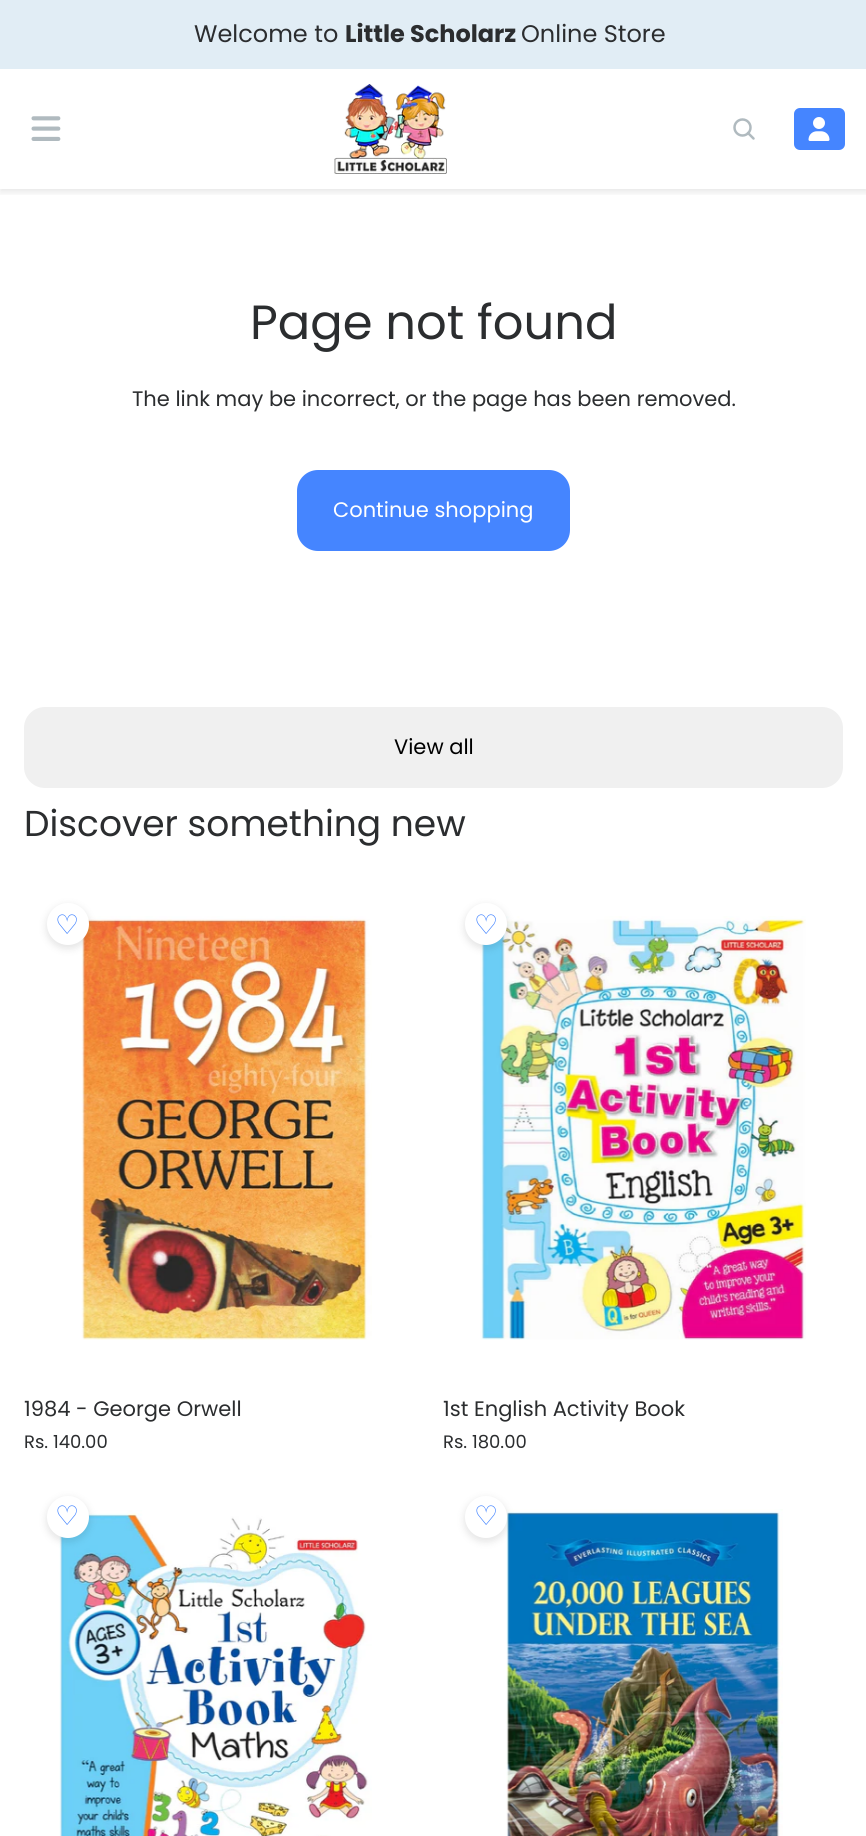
#include <cairo/cairo.h>
#include <math.h>
#include <stddef.h>

static cairo_t *cr;

static void rgb(unsigned color)
{
	cairo_set_source_rgb(cr, (color >> 16) / 255.0, (color >> 8 & 255) / 255.0, (color & 255) / 255.0);
}

static void rrect(double x, double y, double w, double h, double r)
{
	cairo_new_sub_path(cr);
	cairo_arc(cr, x + w - r, y + h - r, r, 0, M_PI / 2);
	cairo_arc(cr, x + r, y + h - r, r, M_PI / 2, M_PI);
	cairo_arc(cr, x + r, y + r, r, M_PI, 1.5 * M_PI);
	cairo_arc(cr, x + w - r, y + r, r, 1.5 * M_PI, 2 * M_PI);
	cairo_close_path(cr);
}

static void soft_shadow(double x, double y, double w, double h, double r, double blur, double alpha)
{
	cairo_push_group_with_content(cr, CAIRO_CONTENT_ALPHA);
	cairo_set_operator(cr, CAIRO_OPERATOR_SOURCE);
	for (int i = 15; i >= -15 && fmin(w, h) + blur * i / 3 > 0; i -= 2) {
		double e = blur * i / 6;
		cairo_set_source_rgba(cr, 0, 0, 0, alpha * erfc((i - 1) / 8.5) / 2);
		rrect(x - e, y - e, w + 2 * e, h + 2 * e, fmax(0, fmin(r + e + blur * .6, fmin(w, h) / 2 + e)));
		cairo_fill(cr);
	}
	cairo_pattern_t *soft = cairo_pop_group(cr);
	cairo_mask(cr, soft);
	cairo_pattern_destroy(soft);
}

static void image(const char *path, double x, double y, double w, double h)
{
	cairo_surface_t *image = cairo_image_surface_create_from_png(path);
	cairo_save(cr);
	cairo_set_source_surface(cr, image, x, y);
	cairo_rectangle(cr, x, y, w, h);
	cairo_fill(cr);
	cairo_restore(cr);
	cairo_surface_destroy(image);
}

int main(void) {
	cairo_surface_t *surface = cairo_image_surface_create(CAIRO_FORMAT_RGB24, 866, 1836);
	cr = cairo_create(surface);
	cairo_font_options_t *options = cairo_font_options_create();
	cairo_font_options_set_hint_metrics(options, CAIRO_HINT_METRICS_OFF);
	cairo_font_options_set_hint_style(options, CAIRO_HINT_STYLE_NONE);
	cairo_set_font_options(cr, options);
	cairo_set_miter_limit(cr, 4);
	rgb(0xffffff);
	cairo_paint(cr);
	rgb(0xe1edf5);
	cairo_rectangle(cr, 0, 0, 866, 69);
	cairo_fill(cr);
	cairo_save(cr);
	cairo_rectangle(cr, 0, 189, 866, 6);
	cairo_clip(cr);
	rgb(0x000000);
	soft_shadow(0, 72, 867, 120, 0, 4, 0.1);
	cairo_restore(cr);
	image("img/1.png", 31, 116, 30, 25);
	image("img/2.png", 334, 84, 113, 90);
	cairo_arc(cr, 742.5, 127.5, 8, 0, 2 * M_PI);
	rgb(0xb0babf);
	cairo_set_line_width(cr, 2.5);
	cairo_stroke(cr);
	cairo_new_path(cr);
	cairo_move_to(cr, 748, 133);
	cairo_line_to(cr, 753.5, 138.5);
	cairo_set_line_cap(cr, CAIRO_LINE_CAP_ROUND);
	cairo_set_line_join(cr, CAIRO_LINE_JOIN_ROUND);
	cairo_stroke(cr);
	rgb(0x4585ff);
	rrect(794, 108, 51, 42, 6);
	cairo_fill(cr);
	image("img/3.png", 808, 117, 22, 24);
	rrect(297, 470, 273, 81, 21);
	cairo_fill(cr);
	rgb(0xf0f0f0);
	rrect(24, 707, 819, 81, 21);
	cairo_fill(cr);
	image("img/4.png", 81, 916, 291, 424);
	rgb(0x000000);
	soft_shadow(47, 906, 42, 42, 21, 4.5, 0.12);
	rgb(0xffffff);
	cairo_arc(cr, 68, 924, 21, 0, 2 * M_PI);
	cairo_fill(cr);
	image("img/5.png", 480, 916, 326, 424);
	rgb(0x000000);
	soft_shadow(465, 906, 42, 42, 21, 4.5, 0.12);
	rgb(0xffffff);
	cairo_arc(cr, 486, 924, 21, 0, 2 * M_PI);
	cairo_fill(cr);
	image("img/6.png", 59, 1510, 313, 326);
	rgb(0x000000);
	soft_shadow(47, 1499, 42, 42, 21, 4.5, 0.12);
	rgb(0xffffff);
	cairo_arc(cr, 68, 1517, 21, 0, 2 * M_PI);
	cairo_fill(cr);
	image("img/7.png", 506, 1509, 277, 327);
	rgb(0x000000);
	soft_shadow(465, 1499, 42, 42, 21, 4.5, 0.12);
	rgb(0xffffff);
	cairo_arc(cr, 486, 1517, 21, 0, 2 * M_PI);
	cairo_fill(cr);
	cairo_select_font_face(cr, "Poppins", CAIRO_FONT_SLANT_NORMAL, CAIRO_FONT_WEIGHT_NORMAL);
	cairo_set_font_size(cr, 24);
	rgb(0x2b2d2f);
	cairo_move_to(cr, 194, 42);
	cairo_show_text(cr, "Welcome to");
	cairo_select_font_face(cr, "Poppins", CAIRO_FONT_SLANT_NORMAL, CAIRO_FONT_WEIGHT_BOLD);
	cairo_move_to(cr, 345, 42);
	cairo_show_text(cr, "Little Scholarz");
	cairo_select_font_face(cr, "Poppins", CAIRO_FONT_SLANT_NORMAL, CAIRO_FONT_WEIGHT_NORMAL);
	cairo_move_to(cr, 521, 42);
	cairo_show_text(cr, "Online Store");
	cairo_set_font_size(cr, 48);
	cairo_move_to(cr, 250, 339);
	cairo_show_text(cr, "Page not found");
	cairo_set_font_size(cr, 21);
	cairo_move_to(cr, 132, 406);
	cairo_show_text(cr, "The link may be incorrect, or the page has been removed.");
	rgb(0xffffff);
	cairo_move_to(cr, 333, 517);
	cairo_show_text(cr, "Continue shopping");
	rgb(0x000000);
	cairo_move_to(cr, 394, 754);
	cairo_show_text(cr, "View all");
	cairo_set_font_size(cr, 36);
	rgb(0x2b2d2f);
	cairo_move_to(cr, 24, 836);
	cairo_show_text(cr, "Discover something new");
	cairo_select_font_face(cr, "DejaVu Sans", CAIRO_FONT_SLANT_NORMAL, CAIRO_FONT_WEIGHT_NORMAL);
	cairo_set_font_size(cr, 27);
	rgb(0x4585ff);
	cairo_move_to(cr, 55, 934);
	cairo_show_text(cr, "♡");
	cairo_select_font_face(cr, "Poppins", CAIRO_FONT_SLANT_NORMAL, CAIRO_FONT_WEIGHT_NORMAL);
	cairo_set_font_size(cr, 21);
	rgb(0x2b2d2f);
	cairo_move_to(cr, 24, 1416);
	cairo_show_text(cr, "1984 - George Orwell");
	cairo_set_font_size(cr, 18);
	cairo_move_to(cr, 24, 1448);
	cairo_show_text(cr, "Rs. 140.00");
	cairo_select_font_face(cr, "DejaVu Sans", CAIRO_FONT_SLANT_NORMAL, CAIRO_FONT_WEIGHT_NORMAL);
	cairo_set_font_size(cr, 27);
	rgb(0x4585ff);
	cairo_move_to(cr, 474, 934);
	cairo_show_text(cr, "♡");
	cairo_select_font_face(cr, "Poppins", CAIRO_FONT_SLANT_NORMAL, CAIRO_FONT_WEIGHT_NORMAL);
	cairo_set_font_size(cr, 21);
	rgb(0x2b2d2f);
	cairo_move_to(cr, 443, 1416);
	cairo_show_text(cr, "1st English Activity Book");
	cairo_set_font_size(cr, 18);
	cairo_move_to(cr, 443, 1448);
	cairo_show_text(cr, "Rs. 180.00");
	cairo_select_font_face(cr, "DejaVu Sans", CAIRO_FONT_SLANT_NORMAL, CAIRO_FONT_WEIGHT_NORMAL);
	cairo_set_font_size(cr, 27);
	rgb(0x4585ff);
	cairo_move_to(cr, 55, 1525);
	cairo_show_text(cr, "♡");
	cairo_move_to(cr, 474, 1525);
	cairo_show_text(cr, "♡");
	cairo_surface_write_to_png(surface, "page.png");
	cairo_font_options_destroy(options);
	cairo_destroy(cr);
	cairo_surface_destroy(surface);
	return 0;
}
